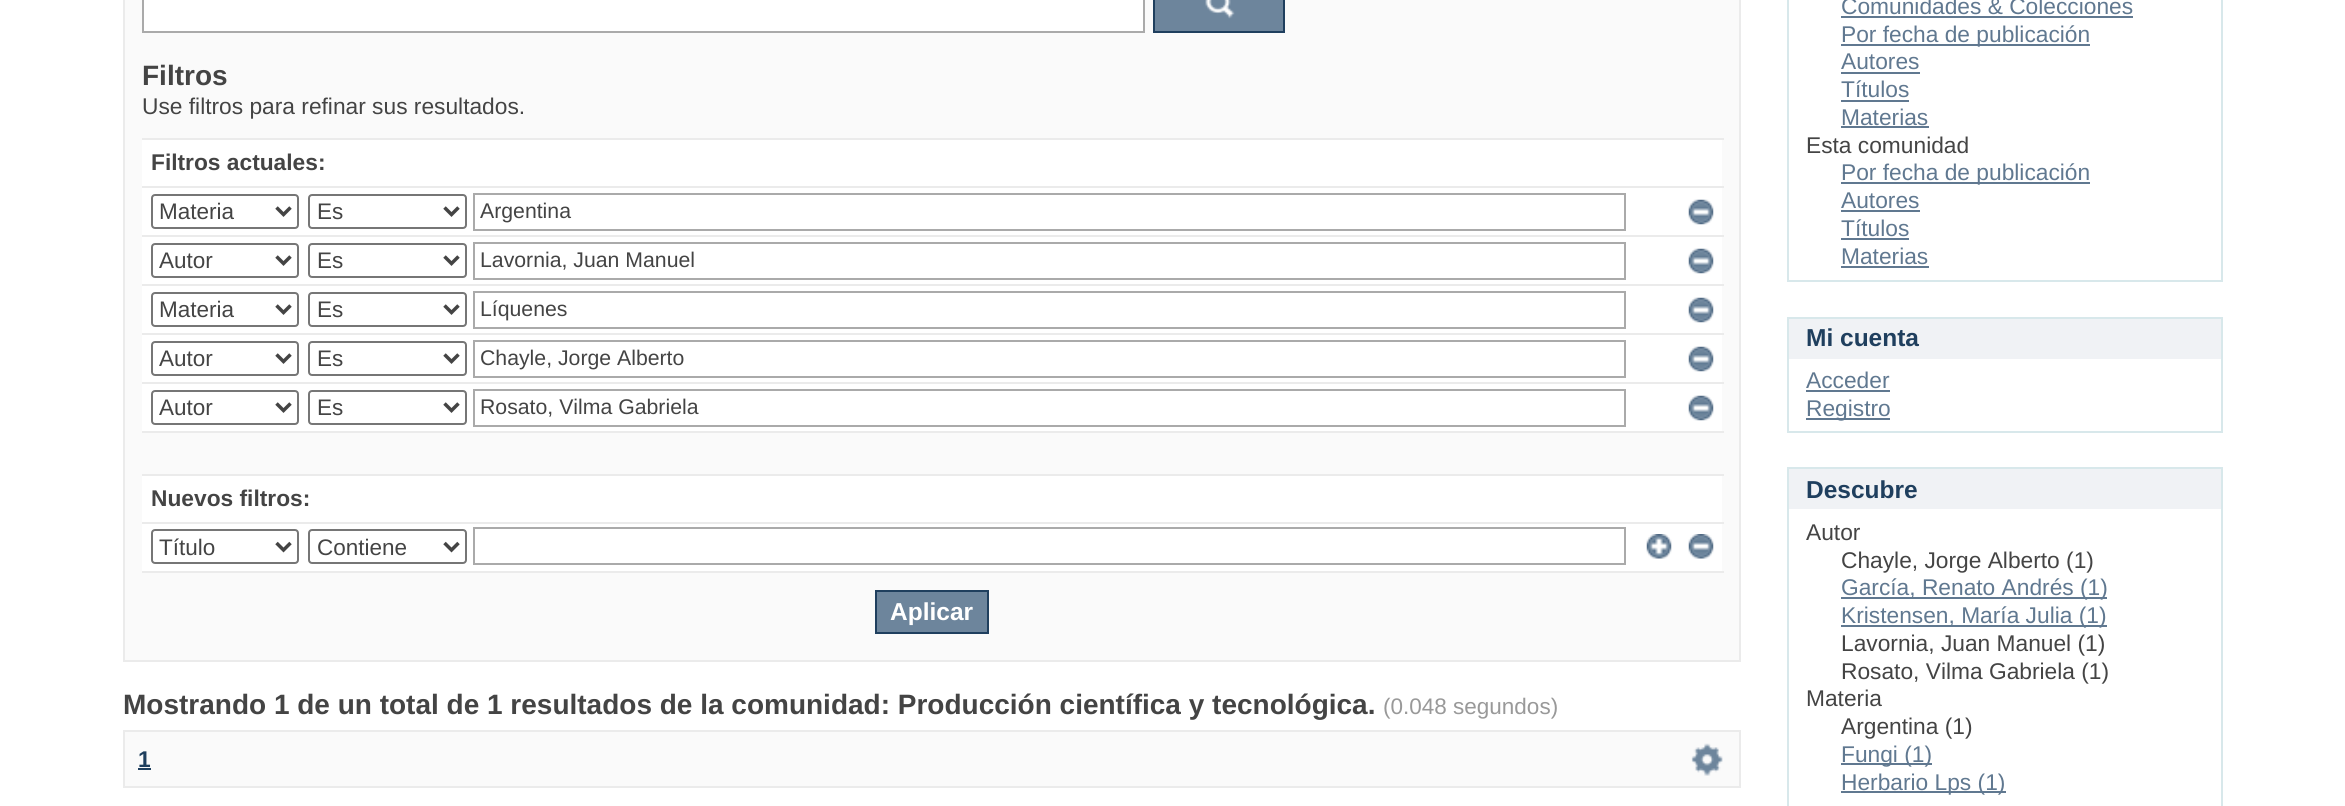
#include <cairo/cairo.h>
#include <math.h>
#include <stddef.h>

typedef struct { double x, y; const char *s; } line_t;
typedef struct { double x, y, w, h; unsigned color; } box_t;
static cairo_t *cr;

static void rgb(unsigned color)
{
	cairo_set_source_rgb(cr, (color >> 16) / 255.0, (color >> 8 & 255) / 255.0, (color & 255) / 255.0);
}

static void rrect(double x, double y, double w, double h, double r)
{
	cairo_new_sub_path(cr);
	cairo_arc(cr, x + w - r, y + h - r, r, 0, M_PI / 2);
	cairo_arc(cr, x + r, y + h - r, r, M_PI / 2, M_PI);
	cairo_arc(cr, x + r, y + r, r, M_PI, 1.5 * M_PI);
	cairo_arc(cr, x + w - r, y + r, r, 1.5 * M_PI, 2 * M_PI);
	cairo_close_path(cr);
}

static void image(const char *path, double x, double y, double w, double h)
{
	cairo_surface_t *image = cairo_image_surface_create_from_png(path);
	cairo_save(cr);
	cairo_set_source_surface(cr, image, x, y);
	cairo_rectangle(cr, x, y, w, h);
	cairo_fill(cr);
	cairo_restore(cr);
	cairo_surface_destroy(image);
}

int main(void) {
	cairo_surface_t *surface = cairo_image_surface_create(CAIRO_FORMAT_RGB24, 2345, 806);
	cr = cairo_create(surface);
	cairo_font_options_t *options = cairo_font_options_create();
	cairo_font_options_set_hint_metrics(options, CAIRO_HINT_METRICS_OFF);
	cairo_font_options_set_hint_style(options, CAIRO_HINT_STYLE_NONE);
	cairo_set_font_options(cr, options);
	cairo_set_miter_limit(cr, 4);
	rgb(0xffffff);
	cairo_paint(cr);
	rgb(0xfafafa);
	cairo_rectangle(cr, 124, -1, 1616, 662);
	cairo_fill_preserve(cr);
	rgb(0xebebeb);
	cairo_stroke(cr);
	rgb(0xffffff);
	cairo_rectangle(cr, 143, -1, 1001, 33);
	cairo_fill_preserve(cr);
	rgb(0xaaaaaa);
	cairo_stroke(cr);
	rgb(0x6d859c);
	cairo_rectangle(cr, 1155, 0, 128, 31);
	cairo_fill(cr);
	image("img/1.png", 1205, 0, 30, 19);
	cairo_rectangle(cr, 1154, -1, 130, 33);
	rgb(0x1f3f5e);
	cairo_stroke(cr);
	{
		static const box_t items[] = {
			{142, 140, 1580, 431, 0xffffff},
			{142, 138, 1582, 2, 0xebebeb},
			{142, 186, 1582, 2, 0xebebeb},
		};
		for (size_t i = 0; i < sizeof items / sizeof *items; i++) {
			rgb(items[i].color);
			cairo_rectangle(cr, items[i].x, items[i].y, items[i].w, items[i].h);
			cairo_fill(cr);
		}
	}
	rrect(152, 195, 146, 33, 3);
	rgb(0x767676);
	cairo_stroke(cr);
	cairo_new_path(cr);
	cairo_move_to(cr, 276.5, 207.5);
	cairo_line_to(cr, 283.5, 214.5);
	cairo_line_to(cr, 290.5, 207.5);
	rgb(0x444444);
	cairo_set_line_width(cr, 3.5);
	cairo_stroke(cr);
	rrect(309, 195, 157, 33, 3);
	rgb(0x767676);
	cairo_set_line_width(cr, 2);
	cairo_stroke(cr);
	cairo_new_path(cr);
	cairo_move_to(cr, 444.5, 207.5);
	cairo_line_to(cr, 451.5, 214.5);
	cairo_line_to(cr, 458.5, 207.5);
	rgb(0x444444);
	cairo_set_line_width(cr, 3.5);
	cairo_stroke(cr);
	cairo_rectangle(cr, 474, 194, 1151, 36);
	rgb(0xaaaaaa);
	cairo_set_line_width(cr, 2);
	cairo_stroke(cr);
	image("img/2.png", 1688, 199, 26, 26);
	rgb(0xebebeb);
	cairo_rectangle(cr, 142, 235, 1582, 2);
	cairo_fill(cr);
	rrect(152, 244, 146, 33, 3);
	rgb(0x767676);
	cairo_stroke(cr);
	cairo_new_path(cr);
	cairo_move_to(cr, 276.5, 256.5);
	cairo_line_to(cr, 283.5, 263.5);
	cairo_line_to(cr, 290.5, 256.5);
	rgb(0x444444);
	cairo_set_line_width(cr, 3.5);
	cairo_stroke(cr);
	rrect(309, 244, 157, 33, 3);
	rgb(0x767676);
	cairo_set_line_width(cr, 2);
	cairo_stroke(cr);
	cairo_new_path(cr);
	cairo_move_to(cr, 444.5, 256.5);
	cairo_line_to(cr, 451.5, 263.5);
	cairo_line_to(cr, 458.5, 256.5);
	rgb(0x444444);
	cairo_set_line_width(cr, 3.5);
	cairo_stroke(cr);
	cairo_rectangle(cr, 474, 243, 1151, 36);
	rgb(0xaaaaaa);
	cairo_set_line_width(cr, 2);
	cairo_stroke(cr);
	image("img/2.png", 1688, 248, 26, 26);
	rgb(0xebebeb);
	cairo_rectangle(cr, 142, 284, 1582, 2);
	cairo_fill(cr);
	rrect(152, 293, 146, 33, 3);
	rgb(0x767676);
	cairo_stroke(cr);
	cairo_new_path(cr);
	cairo_move_to(cr, 276.5, 305.5);
	cairo_line_to(cr, 283.5, 312.5);
	cairo_line_to(cr, 290.5, 305.5);
	rgb(0x444444);
	cairo_set_line_width(cr, 3.5);
	cairo_stroke(cr);
	rrect(309, 293, 157, 33, 3);
	rgb(0x767676);
	cairo_set_line_width(cr, 2);
	cairo_stroke(cr);
	cairo_new_path(cr);
	cairo_move_to(cr, 444.5, 305.5);
	cairo_line_to(cr, 451.5, 312.5);
	cairo_line_to(cr, 458.5, 305.5);
	rgb(0x444444);
	cairo_set_line_width(cr, 3.5);
	cairo_stroke(cr);
	cairo_rectangle(cr, 474, 292, 1151, 36);
	rgb(0xaaaaaa);
	cairo_set_line_width(cr, 2);
	cairo_stroke(cr);
	image("img/2.png", 1688, 297, 26, 26);
	rgb(0xebebeb);
	cairo_rectangle(cr, 142, 333, 1582, 2);
	cairo_fill(cr);
	rrect(152, 342, 146, 33, 3);
	rgb(0x767676);
	cairo_stroke(cr);
	cairo_new_path(cr);
	cairo_move_to(cr, 276.5, 354.5);
	cairo_line_to(cr, 283.5, 361.5);
	cairo_line_to(cr, 290.5, 354.5);
	rgb(0x444444);
	cairo_set_line_width(cr, 3.5);
	cairo_stroke(cr);
	rrect(309, 342, 157, 33, 3);
	rgb(0x767676);
	cairo_set_line_width(cr, 2);
	cairo_stroke(cr);
	cairo_new_path(cr);
	cairo_move_to(cr, 444.5, 354.5);
	cairo_line_to(cr, 451.5, 361.5);
	cairo_line_to(cr, 458.5, 354.5);
	rgb(0x444444);
	cairo_set_line_width(cr, 3.5);
	cairo_stroke(cr);
	cairo_rectangle(cr, 474, 341, 1151, 36);
	rgb(0xaaaaaa);
	cairo_set_line_width(cr, 2);
	cairo_stroke(cr);
	image("img/2.png", 1688, 346, 26, 26);
	rgb(0xebebeb);
	cairo_rectangle(cr, 142, 382, 1582, 2);
	cairo_fill(cr);
	rrect(152, 391, 146, 33, 3);
	rgb(0x767676);
	cairo_stroke(cr);
	cairo_new_path(cr);
	cairo_move_to(cr, 276.5, 403.5);
	cairo_line_to(cr, 283.5, 410.5);
	cairo_line_to(cr, 290.5, 403.5);
	rgb(0x444444);
	cairo_set_line_width(cr, 3.5);
	cairo_stroke(cr);
	rrect(309, 391, 157, 33, 3);
	rgb(0x767676);
	cairo_set_line_width(cr, 2);
	cairo_stroke(cr);
	cairo_new_path(cr);
	cairo_move_to(cr, 444.5, 403.5);
	cairo_line_to(cr, 451.5, 410.5);
	cairo_line_to(cr, 458.5, 403.5);
	rgb(0x444444);
	cairo_set_line_width(cr, 3.5);
	cairo_stroke(cr);
	cairo_rectangle(cr, 474, 390, 1151, 36);
	rgb(0xaaaaaa);
	cairo_set_line_width(cr, 2);
	cairo_stroke(cr);
	image("img/2.png", 1688, 395, 26, 26);
	{
		static const box_t items[] = {
			{142, 433, 1580, 41, 0xfafafa},
			{142, 431, 1582, 2, 0xebebeb},
			{142, 474, 1582, 2, 0xebebeb},
			{142, 522, 1582, 2, 0xebebeb},
		};
		for (size_t i = 0; i < sizeof items / sizeof *items; i++) {
			rgb(items[i].color);
			cairo_rectangle(cr, items[i].x, items[i].y, items[i].w, items[i].h);
			cairo_fill(cr);
		}
	}
	rrect(152, 530, 146, 33, 3);
	rgb(0x767676);
	cairo_stroke(cr);
	cairo_new_path(cr);
	cairo_move_to(cr, 276.5, 543);
	cairo_line_to(cr, 283.5, 550);
	cairo_line_to(cr, 290.5, 543);
	rgb(0x444444);
	cairo_set_line_width(cr, 3.5);
	cairo_stroke(cr);
	rrect(309, 530, 157, 33, 3);
	rgb(0x767676);
	cairo_set_line_width(cr, 2);
	cairo_stroke(cr);
	cairo_new_path(cr);
	cairo_move_to(cr, 444.5, 543);
	cairo_line_to(cr, 451.5, 550);
	cairo_line_to(cr, 458.5, 543);
	rgb(0x444444);
	cairo_set_line_width(cr, 3.5);
	cairo_stroke(cr);
	cairo_rectangle(cr, 474, 528, 1151, 36);
	rgb(0xaaaaaa);
	cairo_set_line_width(cr, 2);
	cairo_stroke(cr);
	image("img/3.png", 1646, 534, 26, 25);
	image("img/4.png", 1688, 534, 26, 25);
	rgb(0xebebeb);
	cairo_rectangle(cr, 142, 571, 1582, 2);
	cairo_fill(cr);
	rgb(0x6d859c);
	cairo_rectangle(cr, 876, 591, 112, 42);
	cairo_fill_preserve(cr);
	rgb(0x1f3f5e);
	cairo_stroke(cr);
	rgb(0xfafafa);
	cairo_rectangle(cr, 124, 731, 1616, 56);
	cairo_fill_preserve(cr);
	rgb(0xebebeb);
	cairo_stroke(cr);
	rgb(0x1f3f5e);
	cairo_rectangle(cr, 138, 768, 13, 2);
	cairo_fill(cr);
	image("img/5.png", 1691, 743, 32, 33);
	{
		static const box_t items[] = {
			{2221, 0, 2, 282, 0xd8e8eb},
			{1787, 280, 436, 2, 0xd8e8eb},
			{1787, 0, 2, 282, 0xd8e8eb},
			{1841, 16, 292, 2, 0x607890},
			{1841, 44, 249, 2, 0x607890},
			{1841, 72, 79, 2, 0x607890},
			{1841, 100, 68, 2, 0x607890},
			{1841, 126, 88, 2, 0x607890},
			{1841, 182, 249, 2, 0x607890},
			{1841, 210, 79, 2, 0x607890},
			{1841, 238, 68, 2, 0x607890},
			{1841, 266, 88, 2, 0x607890},
			{1789, 319, 432, 40, 0xf0f2f5},
			{1787, 317, 436, 2, 0xd8e8eb},
			{2221, 317, 2, 115, 0xd8e8eb},
			{1787, 317, 2, 42, 0xd8e8eb},
			{1787, 431, 436, 2, 0xd8e8eb},
			{1787, 359, 2, 73, 0xd8e8eb},
			{1806, 390, 84, 2, 0x607890},
			{1806, 418, 84, 2, 0x607890},
			{1789, 469, 432, 40, 0xf0f2f5},
			{1787, 467, 436, 2, 0xd8e8eb},
			{2221, 467, 2, 339, 0xd8e8eb},
			{1787, 467, 2, 339, 0xd8e8eb},
			{1841, 597, 266, 2, 0x607890},
			{1841, 625, 266, 2, 0x607890},
			{1841, 763, 91, 2, 0x607890},
			{1841, 791, 165, 2, 0x607890},
		};
		for (size_t i = 0; i < sizeof items / sizeof *items; i++) {
			rgb(items[i].color);
			cairo_rectangle(cr, items[i].x, items[i].y, items[i].w, items[i].h);
			cairo_fill(cr);
		}
	}
	cairo_select_font_face(cr, "Liberation Sans", CAIRO_FONT_SLANT_NORMAL, CAIRO_FONT_WEIGHT_BOLD);
	cairo_set_font_size(cr, 28);
	rgb(0x444444);
	cairo_move_to(cr, 142, 85);
	cairo_show_text(cr, "Filtros");
	cairo_select_font_face(cr, "Liberation Sans", CAIRO_FONT_SLANT_NORMAL, CAIRO_FONT_WEIGHT_NORMAL);
	cairo_set_font_size(cr, 22.75);
	cairo_move_to(cr, 142, 114);
	cairo_show_text(cr, "Use filtros para refinar sus resultados.");
	cairo_select_font_face(cr, "Liberation Sans", CAIRO_FONT_SLANT_NORMAL, CAIRO_FONT_WEIGHT_BOLD);
	cairo_move_to(cr, 151, 170);
	cairo_show_text(cr, "Filtros actuales:");
	cairo_select_font_face(cr, "Liberation Sans", CAIRO_FONT_SLANT_NORMAL, CAIRO_FONT_WEIGHT_NORMAL);
	cairo_set_font_size(cr, 22.5);
	cairo_move_to(cr, 159, 219);
	cairo_show_text(cr, "Materia");
	cairo_move_to(cr, 317, 219);
	cairo_show_text(cr, "Es");
	cairo_set_font_size(cr, 21.25);
	cairo_move_to(cr, 480, 218);
	cairo_show_text(cr, "Argentina");
	cairo_set_font_size(cr, 22.5);
	cairo_move_to(cr, 159, 268);
	cairo_show_text(cr, "Autor");
	cairo_move_to(cr, 317, 268);
	cairo_show_text(cr, "Es");
	cairo_set_font_size(cr, 21.25);
	cairo_move_to(cr, 480, 267);
	cairo_show_text(cr, "Lavornia, Juan Manuel");
	cairo_set_font_size(cr, 22.5);
	cairo_move_to(cr, 159, 317);
	cairo_show_text(cr, "Materia");
	cairo_move_to(cr, 317, 317);
	cairo_show_text(cr, "Es");
	cairo_set_font_size(cr, 21.25);
	cairo_move_to(cr, 480, 316);
	cairo_show_text(cr, "Líquenes");
	cairo_set_font_size(cr, 22.5);
	cairo_move_to(cr, 159, 366);
	cairo_show_text(cr, "Autor");
	cairo_move_to(cr, 317, 366);
	cairo_show_text(cr, "Es");
	cairo_set_font_size(cr, 21.25);
	cairo_move_to(cr, 480, 365);
	cairo_show_text(cr, "Chayle, Jorge Alberto");
	cairo_set_font_size(cr, 22.5);
	cairo_move_to(cr, 159, 415);
	cairo_show_text(cr, "Autor");
	cairo_move_to(cr, 317, 415);
	cairo_show_text(cr, "Es");
	cairo_set_font_size(cr, 21.25);
	cairo_move_to(cr, 480, 414);
	cairo_show_text(cr, "Rosato, Vilma Gabriela");
	cairo_select_font_face(cr, "Liberation Sans", CAIRO_FONT_SLANT_NORMAL, CAIRO_FONT_WEIGHT_BOLD);
	cairo_set_font_size(cr, 22.75);
	cairo_move_to(cr, 151, 506);
	cairo_show_text(cr, "Nuevos filtros:");
	cairo_select_font_face(cr, "Liberation Sans", CAIRO_FONT_SLANT_NORMAL, CAIRO_FONT_WEIGHT_NORMAL);
	cairo_set_font_size(cr, 22.5);
	cairo_move_to(cr, 159, 555);
	cairo_show_text(cr, "Título");
	cairo_move_to(cr, 317, 555);
	cairo_show_text(cr, "Contiene");
	cairo_select_font_face(cr, "Liberation Sans", CAIRO_FONT_SLANT_NORMAL, CAIRO_FONT_WEIGHT_BOLD);
	cairo_set_font_size(cr, 24.5);
	rgb(0xffffff);
	cairo_move_to(cr, 890, 620);
	cairo_show_text(cr, "Aplicar");
	cairo_set_font_size(cr, 28);
	rgb(0x444444);
	cairo_move_to(cr, 123, 714);
	cairo_show_text(cr, "Mostrando 1 de un total de 1 resultados de la comunidad: Producción científica y tecnológica.");
	cairo_select_font_face(cr, "Liberation Sans", CAIRO_FONT_SLANT_NORMAL, CAIRO_FONT_WEIGHT_NORMAL);
	cairo_set_font_size(cr, 22.5);
	rgb(0x999999);
	cairo_move_to(cr, 1383, 714);
	cairo_show_text(cr, "(0.048 segundos)");
	cairo_select_font_face(cr, "Liberation Sans", CAIRO_FONT_SLANT_NORMAL, CAIRO_FONT_WEIGHT_BOLD);
	cairo_set_font_size(cr, 22.75);
	rgb(0x1f3f5e);
	cairo_move_to(cr, 138, 767);
	cairo_show_text(cr, "1");
	cairo_select_font_face(cr, "Liberation Sans", CAIRO_FONT_SLANT_NORMAL, CAIRO_FONT_WEIGHT_NORMAL);
	rgb(0x607890);
	{
		static const line_t items[] = {
			{1841, 14, "Comunidades & Colecciones"},
			{1841, 42, "Por fecha de publicación"},
			{1841, 69, "Autores"},
			{1841, 97, "Títulos"},
			{1841, 125, "Materias"},
		};
		for (size_t i = 0; i < sizeof items / sizeof *items; i++) {
			cairo_move_to(cr, items[i].x, items[i].y);
			cairo_show_text(cr, items[i].s);
		}
	}
	rgb(0x444444);
	cairo_move_to(cr, 1806, 153);
	cairo_show_text(cr, "Esta comunidad");
	rgb(0x607890);
	{
		static const line_t items[] = {
			{1841, 180, "Por fecha de publicación"},
			{1841, 208, "Autores"},
			{1841, 236, "Títulos"},
			{1841, 264, "Materias"},
		};
		for (size_t i = 0; i < sizeof items / sizeof *items; i++) {
			cairo_move_to(cr, items[i].x, items[i].y);
			cairo_show_text(cr, items[i].s);
		}
	}
	cairo_select_font_face(cr, "Liberation Sans", CAIRO_FONT_SLANT_NORMAL, CAIRO_FONT_WEIGHT_BOLD);
	cairo_set_font_size(cr, 24.5);
	rgb(0x1f3f5e);
	cairo_move_to(cr, 1806, 346);
	cairo_show_text(cr, "Mi cuenta");
	cairo_select_font_face(cr, "Liberation Sans", CAIRO_FONT_SLANT_NORMAL, CAIRO_FONT_WEIGHT_NORMAL);
	cairo_set_font_size(cr, 22.75);
	rgb(0x607890);
	cairo_move_to(cr, 1806, 388);
	cairo_show_text(cr, "Acceder");
	cairo_move_to(cr, 1806, 416);
	cairo_show_text(cr, "Registro");
	cairo_select_font_face(cr, "Liberation Sans", CAIRO_FONT_SLANT_NORMAL, CAIRO_FONT_WEIGHT_BOLD);
	cairo_set_font_size(cr, 24.5);
	rgb(0x1f3f5e);
	cairo_move_to(cr, 1806, 498);
	cairo_show_text(cr, "Descubre");
	cairo_select_font_face(cr, "Liberation Sans", CAIRO_FONT_SLANT_NORMAL, CAIRO_FONT_WEIGHT_NORMAL);
	cairo_set_font_size(cr, 22.75);
	rgb(0x444444);
	cairo_move_to(cr, 1806, 540);
	cairo_show_text(cr, "Autor");
	cairo_move_to(cr, 1841, 568);
	cairo_show_text(cr, "Chayle, Jorge Alberto (1)");
	rgb(0x607890);
	cairo_move_to(cr, 1841, 595);
	cairo_show_text(cr, "García, Renato Andrés (1)");
	cairo_move_to(cr, 1841, 623);
	cairo_show_text(cr, "Kristensen, María Julia (1)");
	rgb(0x444444);
	{
		static const line_t items[] = {
			{1841, 651, "Lavornia, Juan Manuel (1)"},
			{1841, 679, "Rosato, Vilma Gabriela (1)"},
			{1806, 706, "Materia"},
			{1841, 734, "Argentina (1)"},
		};
		for (size_t i = 0; i < sizeof items / sizeof *items; i++) {
			cairo_move_to(cr, items[i].x, items[i].y);
			cairo_show_text(cr, items[i].s);
		}
	}
	rgb(0x607890);
	cairo_move_to(cr, 1841, 762);
	cairo_show_text(cr, "Fungi (1)");
	cairo_move_to(cr, 1841, 790);
	cairo_show_text(cr, "Herbario Lps (1)");
	cairo_surface_write_to_png(surface, "page.png");
	cairo_font_options_destroy(options);
	cairo_destroy(cr);
	cairo_surface_destroy(surface);
	return 0;
}
